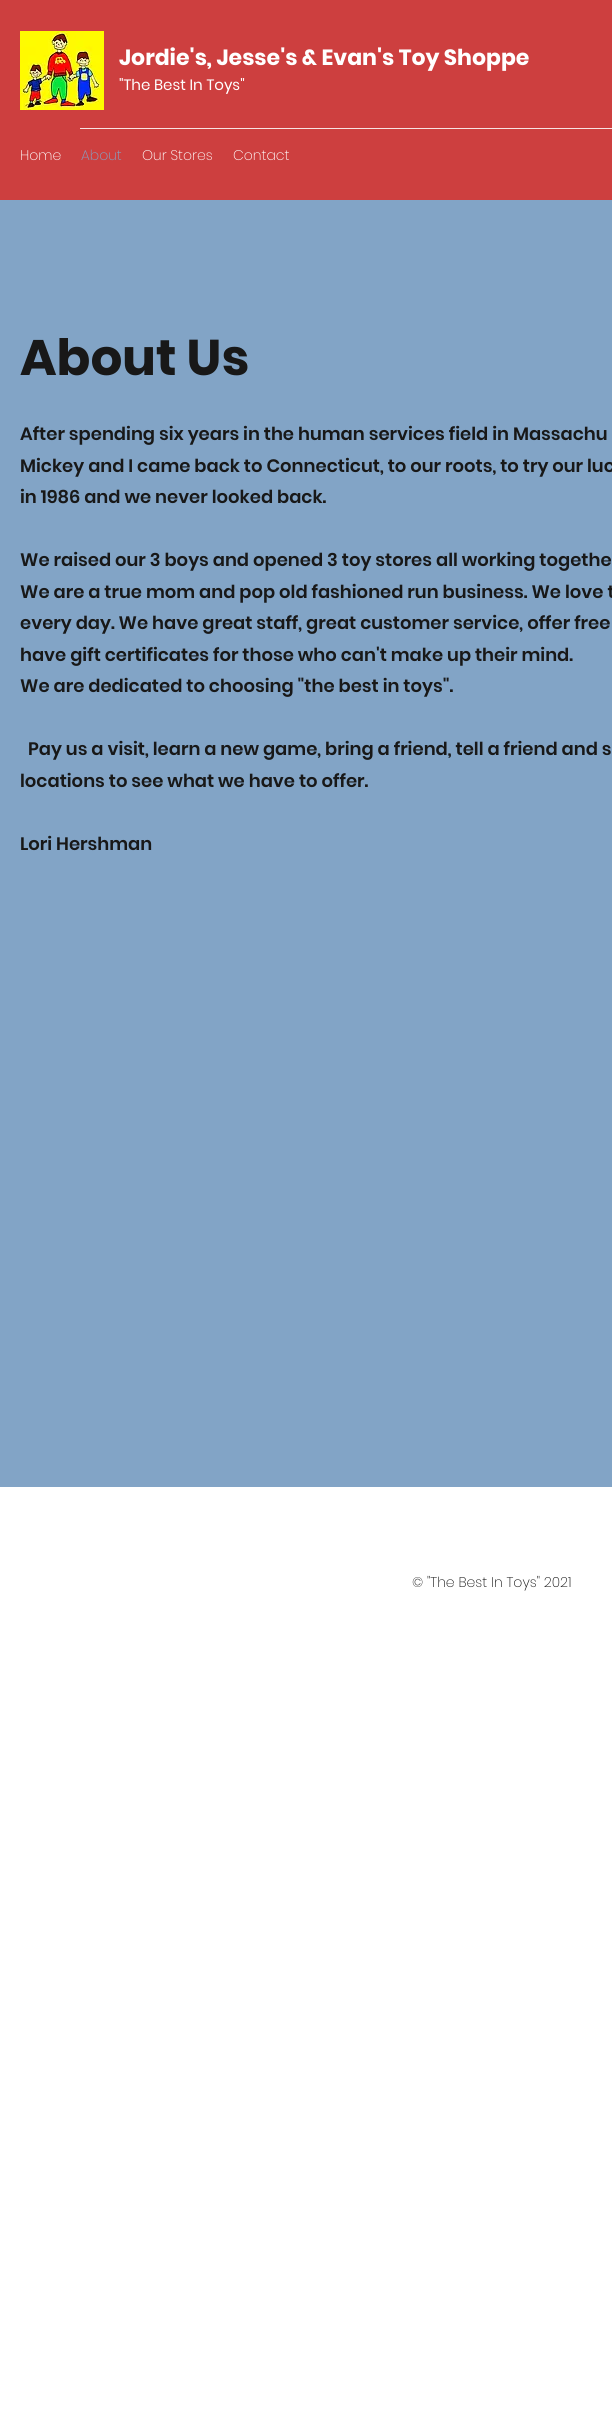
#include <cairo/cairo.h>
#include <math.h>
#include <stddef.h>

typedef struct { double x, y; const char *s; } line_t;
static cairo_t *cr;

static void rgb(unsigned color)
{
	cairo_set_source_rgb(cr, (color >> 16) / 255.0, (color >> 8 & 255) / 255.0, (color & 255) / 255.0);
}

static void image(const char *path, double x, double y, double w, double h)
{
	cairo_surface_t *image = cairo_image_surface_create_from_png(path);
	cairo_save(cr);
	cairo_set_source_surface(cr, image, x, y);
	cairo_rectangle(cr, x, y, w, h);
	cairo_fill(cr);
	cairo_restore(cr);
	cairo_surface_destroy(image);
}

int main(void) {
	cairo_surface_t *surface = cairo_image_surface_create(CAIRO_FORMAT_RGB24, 612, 2431);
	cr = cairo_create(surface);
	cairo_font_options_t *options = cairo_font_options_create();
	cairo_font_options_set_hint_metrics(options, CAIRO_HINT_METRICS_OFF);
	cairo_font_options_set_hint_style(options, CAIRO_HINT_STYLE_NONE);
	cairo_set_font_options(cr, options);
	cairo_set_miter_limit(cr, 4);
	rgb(0xffffff);
	cairo_paint(cr);
	rgb(0xcd3f3f);
	cairo_rectangle(cr, 0, 0, 612, 200);
	cairo_fill(cr);
	image("img/1.png", 20, 31, 84, 79);
	rgb(0xf8e2e2);
	cairo_rectangle(cr, 80, 128, 532, 1);
	cairo_fill(cr);
	rgb(0x82a4c6);
	cairo_rectangle(cr, 0, 200, 612, 1287);
	cairo_fill(cr);
	cairo_select_font_face(cr, "Poppins", CAIRO_FONT_SLANT_NORMAL, CAIRO_FONT_WEIGHT_BOLD);
	cairo_set_font_size(cr, 22);
	rgb(0xffffff);
	cairo_move_to(cr, 119, 65);
	cairo_show_text(cr, "Jordie's, Jesse's & Evan's Toy Shoppe");
	cairo_select_font_face(cr, "Poppins", CAIRO_FONT_SLANT_NORMAL, CAIRO_FONT_WEIGHT_NORMAL);
	cairo_set_font_size(cr, 15);
	cairo_move_to(cr, 119, 90);
	cairo_show_text(cr, "\"The Best In Toys\"");
	cairo_select_font_face(cr, "Poppins ExtraLight", CAIRO_FONT_SLANT_NORMAL, CAIRO_FONT_WEIGHT_NORMAL);
	cairo_set_font_size(cr, 14);
	cairo_move_to(cr, 20, 160);
	cairo_show_text(cr, "Home");
	rgb(0x82a4c6);
	cairo_move_to(cr, 81, 160);
	cairo_show_text(cr, "About");
	rgb(0xffffff);
	cairo_move_to(cr, 142, 160);
	cairo_show_text(cr, "Our Stores");
	cairo_move_to(cr, 233, 160);
	cairo_show_text(cr, "Contact");
	cairo_select_font_face(cr, "Poppins", CAIRO_FONT_SLANT_NORMAL, CAIRO_FONT_WEIGHT_BOLD);
	cairo_set_font_size(cr, 50);
	rgb(0x181818);
	cairo_move_to(cr, 20, 375);
	cairo_show_text(cr, "About Us");
	cairo_select_font_face(cr, "Poppins SemiBold", CAIRO_FONT_SLANT_NORMAL, CAIRO_FONT_WEIGHT_NORMAL);
	cairo_set_font_size(cr, 18);
	{
		static const line_t items[] = {
			{20, 440, "After spending six years in the human services field in Massachu"},
			{20, 472, "Mickey and I came back to Connecticut, to our roots, to try our luc"},
			{20, 503, "in 1986 and we never looked back."},
			{20, 566, "We raised our 3 boys and opened 3 toy stores all working togethe"},
			{20, 598, "We are a true mom and pop old fashioned run business. We love t"},
			{20, 629, "every day. We have great staff, great customer service, offer free"},
			{20, 661, "have gift certificates for those who can't make up their mind."},
			{20, 692, "We are dedicated to choosing \"the best in toys\"."},
			{28, 755, "Pay us a visit, learn a new game, bring a friend, tell a friend and s"},
			{20, 787, "locations to see what we have to offer."},
			{20, 850, "Lori Hershman"},
		};
		for (size_t i = 0; i < sizeof items / sizeof *items; i++) {
			cairo_move_to(cr, items[i].x, items[i].y);
			cairo_show_text(cr, items[i].s);
		}
	}
	cairo_select_font_face(cr, "Poppins ExtraLight", CAIRO_FONT_SLANT_NORMAL, CAIRO_FONT_WEIGHT_NORMAL);
	cairo_set_font_size(cr, 14);
	cairo_move_to(cr, 412, 1587);
	cairo_show_text(cr, "© \"The Best In Toys\" 2021");
	cairo_surface_write_to_png(surface, "page.png");
	cairo_font_options_destroy(options);
	cairo_destroy(cr);
	cairo_surface_destroy(surface);
	return 0;
}
